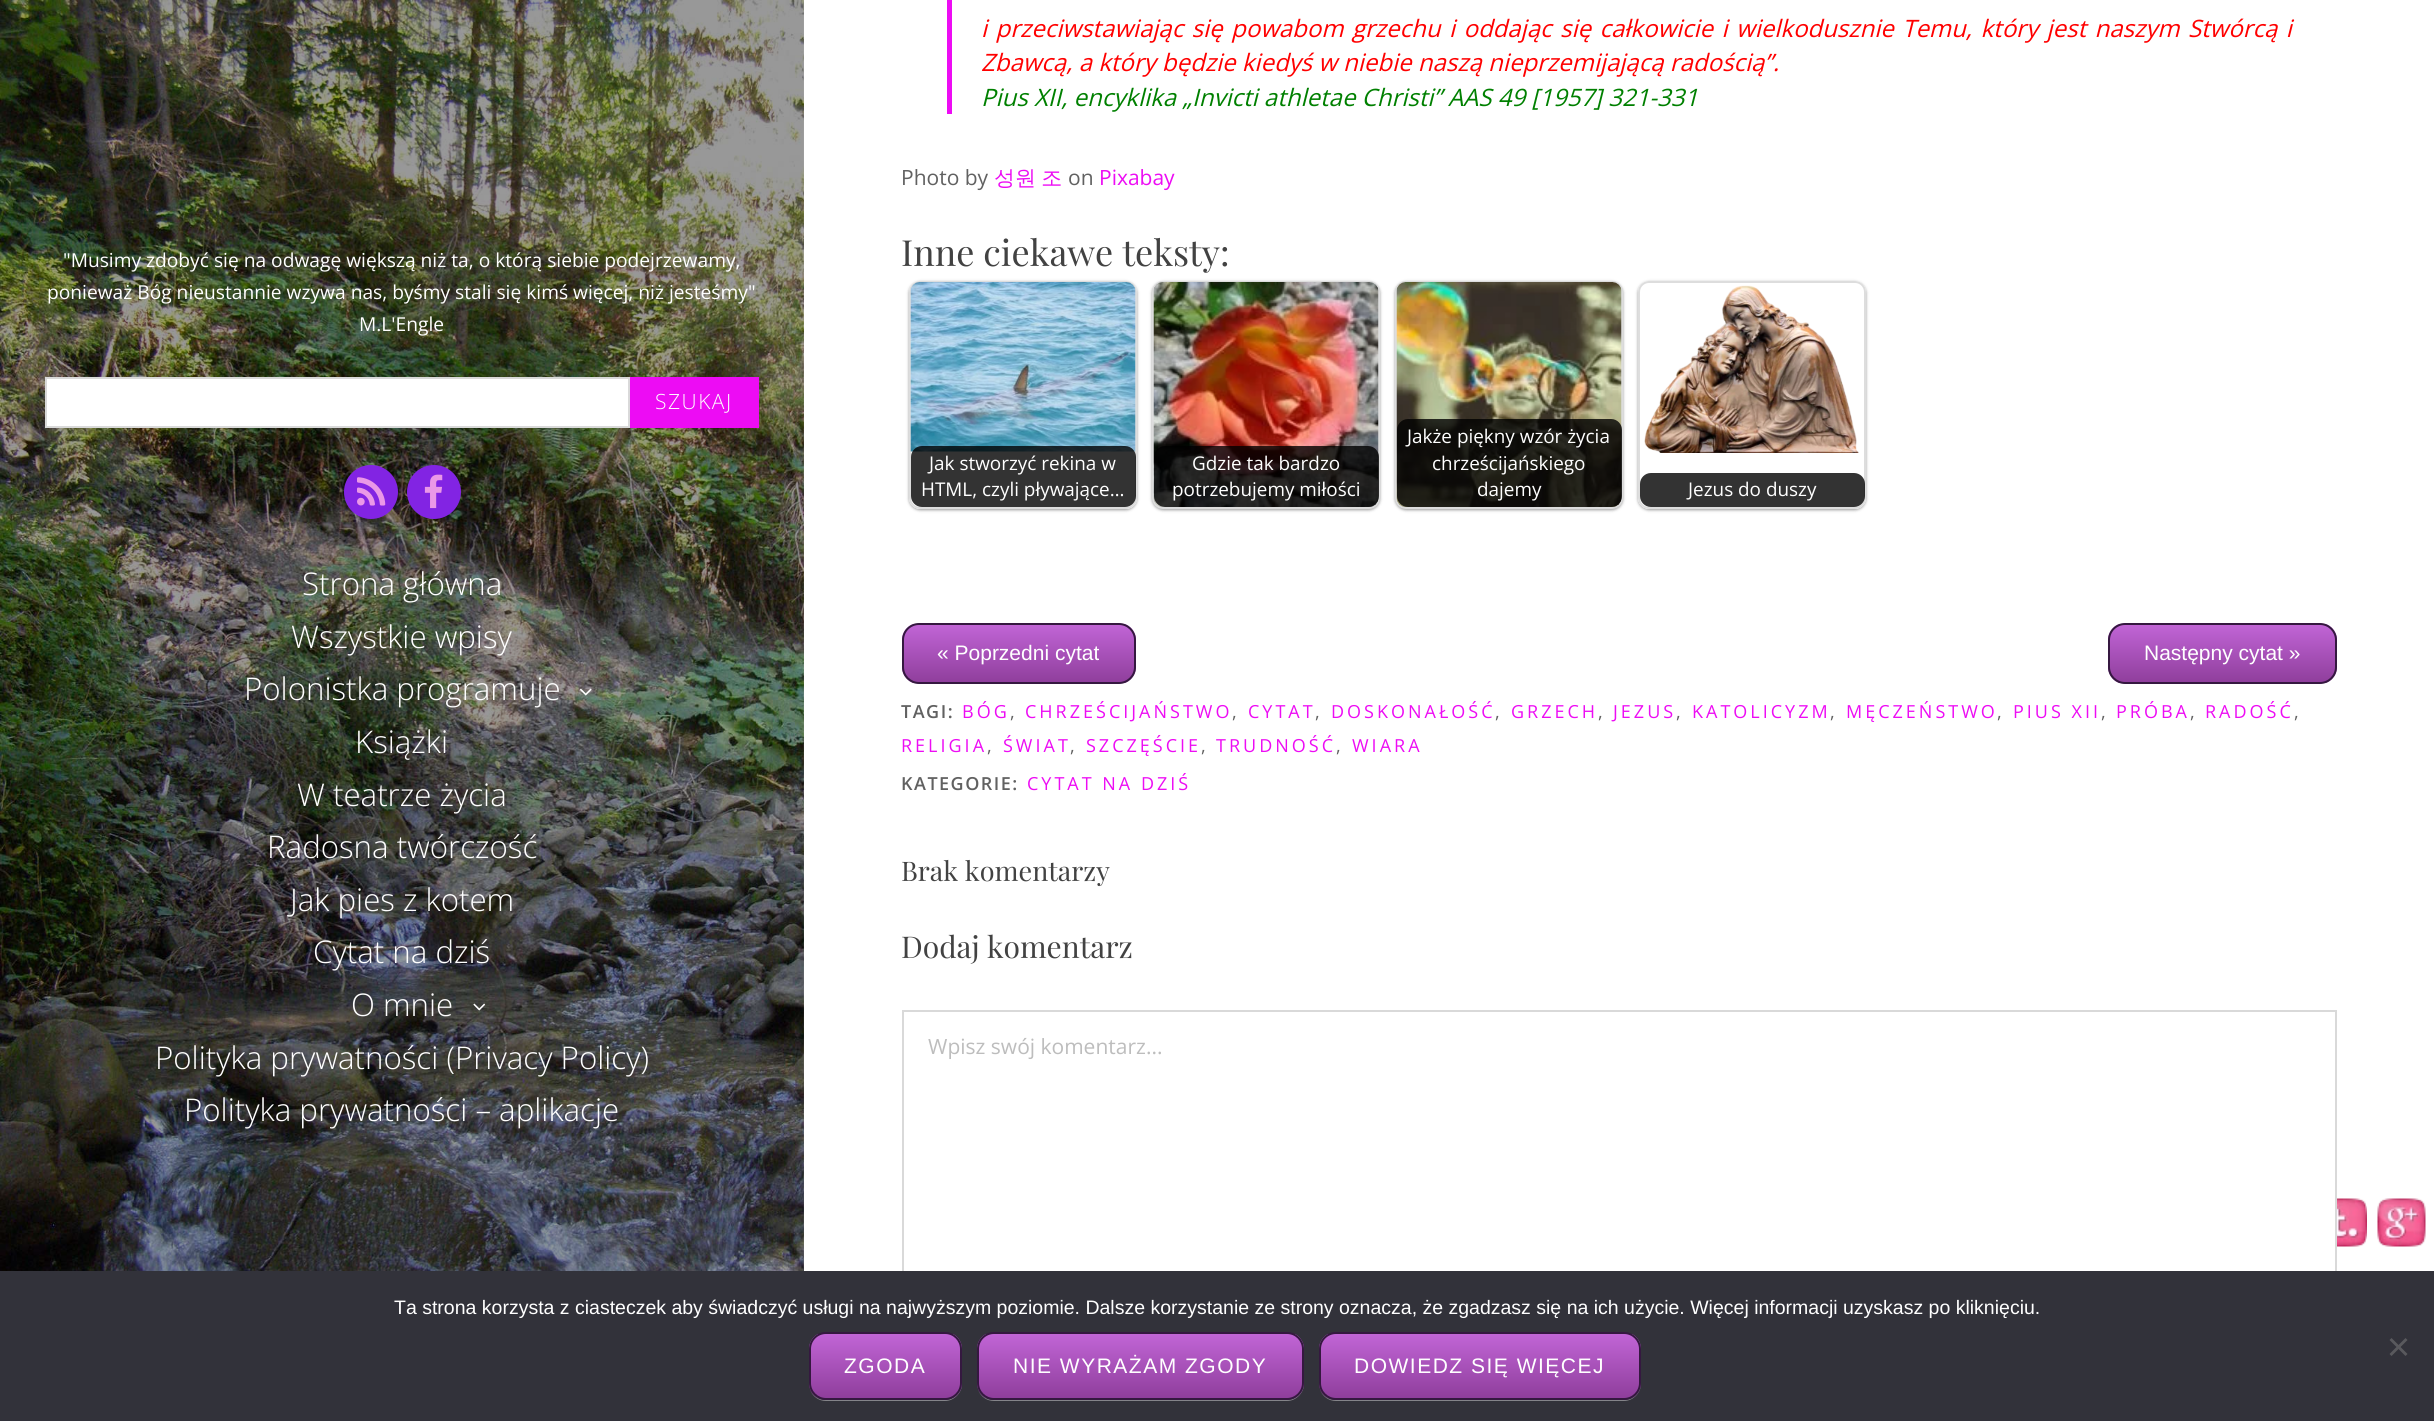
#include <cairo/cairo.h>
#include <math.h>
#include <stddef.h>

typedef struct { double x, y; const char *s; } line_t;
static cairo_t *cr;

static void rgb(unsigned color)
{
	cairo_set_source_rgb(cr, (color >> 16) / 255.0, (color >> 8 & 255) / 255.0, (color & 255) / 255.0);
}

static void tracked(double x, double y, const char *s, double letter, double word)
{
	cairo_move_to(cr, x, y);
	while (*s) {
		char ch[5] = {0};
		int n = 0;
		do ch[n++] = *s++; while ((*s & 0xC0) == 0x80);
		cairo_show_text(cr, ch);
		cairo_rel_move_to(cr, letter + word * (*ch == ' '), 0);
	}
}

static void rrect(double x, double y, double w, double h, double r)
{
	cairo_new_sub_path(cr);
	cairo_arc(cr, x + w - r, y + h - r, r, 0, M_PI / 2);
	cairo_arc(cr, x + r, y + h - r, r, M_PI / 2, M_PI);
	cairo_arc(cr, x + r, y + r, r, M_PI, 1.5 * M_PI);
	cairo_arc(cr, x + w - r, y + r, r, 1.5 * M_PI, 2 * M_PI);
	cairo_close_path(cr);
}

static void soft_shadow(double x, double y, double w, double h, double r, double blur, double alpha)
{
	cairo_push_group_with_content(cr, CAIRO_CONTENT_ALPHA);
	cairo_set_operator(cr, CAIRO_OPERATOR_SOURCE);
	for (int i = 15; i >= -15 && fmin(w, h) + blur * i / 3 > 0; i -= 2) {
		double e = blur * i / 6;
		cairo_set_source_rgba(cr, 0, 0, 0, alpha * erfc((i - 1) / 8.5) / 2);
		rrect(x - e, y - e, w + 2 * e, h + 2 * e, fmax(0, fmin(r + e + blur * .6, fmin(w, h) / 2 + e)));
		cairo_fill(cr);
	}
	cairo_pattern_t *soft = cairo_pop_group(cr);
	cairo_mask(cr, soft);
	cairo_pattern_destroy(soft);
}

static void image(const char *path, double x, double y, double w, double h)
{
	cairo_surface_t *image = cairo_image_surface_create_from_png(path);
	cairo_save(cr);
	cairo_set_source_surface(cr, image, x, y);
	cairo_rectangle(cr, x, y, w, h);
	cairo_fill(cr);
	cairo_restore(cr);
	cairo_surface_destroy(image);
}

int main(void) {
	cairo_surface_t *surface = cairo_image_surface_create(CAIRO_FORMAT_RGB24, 2434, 1421);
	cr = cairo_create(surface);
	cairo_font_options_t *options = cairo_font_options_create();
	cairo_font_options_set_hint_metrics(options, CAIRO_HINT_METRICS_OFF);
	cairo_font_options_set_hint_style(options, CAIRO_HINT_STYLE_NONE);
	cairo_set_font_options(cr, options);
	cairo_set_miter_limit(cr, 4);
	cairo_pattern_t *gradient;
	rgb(0xffffff);
	cairo_paint(cr);
	image("img/1.png", 0, 0, 804, 1271);
	rgb(0xffffff);
	cairo_rectangle(cr, 46, 378, 583, 49);
	cairo_fill_preserve(cr);
	rgb(0xd9d9d9);
	cairo_stroke(cr);
	rgb(0xed0cf4);
	cairo_rectangle(cr, 630, 377, 129, 51);
	cairo_fill(cr);
	rgb(0x8224e3);
	cairo_arc(cr, 371, 492, 27, 0, 2 * M_PI);
	cairo_fill(cr);
	image("img/2.png", 357, 477, 29, 29);
	cairo_arc(cr, 434, 492, 27, 0, 2 * M_PI);
	cairo_fill(cr);
	image("img/3.png", 424, 474, 19, 35);
	image("img/4.png", 580, 688, 12, 8);
	image("img/5.png", 473, 1003, 13, 8);
	rgb(0xed0cf4);
	cairo_rectangle(cr, 947, 0, 5, 114);
	cairo_fill(cr);
	cairo_save(cr);
	cairo_set_fill_rule(cr, CAIRO_FILL_RULE_EVEN_ODD);
	cairo_new_path(cr);
	cairo_move_to(cr, 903, 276);
	cairo_line_to(cr, 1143, 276);
	cairo_line_to(cr, 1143, 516);
	cairo_line_to(cr, 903, 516);
	cairo_close_path(cr);
	cairo_move_to(cr, 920, 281);
	cairo_line_to(cr, 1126, 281);
	cairo_curve_to(cr, 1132, 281, 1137, 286, 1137, 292);
	cairo_line_to(cr, 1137, 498);
	cairo_curve_to(cr, 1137, 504, 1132, 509, 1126, 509);
	cairo_line_to(cr, 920, 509);
	cairo_curve_to(cr, 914, 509, 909, 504, 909, 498);
	cairo_line_to(cr, 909, 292);
	cairo_curve_to(cr, 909, 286, 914, 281, 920, 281);
	cairo_close_path(cr);
	cairo_clip(cr);
	rgb(0x000000);
	soft_shadow(909, 282, 228, 228, 11, 1.5, 0.4);
	cairo_restore(cr);
	rrect(910, 282, 226, 226, 10);
	rgb(0xdddddd);
	cairo_stroke(cr);
	image("img/6.png", 910, 282, 226, 170);
	cairo_set_source_rgba(cr, 0, 0, 0, 0.8);
	rrect(911, 446, 225, 61, 11);
	cairo_fill(cr);
	rgb(0x000000);
	soft_shadow(1152, 282, 228, 228, 11, 1.5, 0.4);
	rrect(1153, 282, 226, 226, 10);
	rgb(0xdddddd);
	cairo_stroke(cr);
	image("img/7.png", 1153, 282, 226, 225);
	cairo_set_source_rgba(cr, 0, 0, 0, 0.8);
	rrect(1154, 446, 225, 61, 11);
	cairo_fill(cr);
	rgb(0x000000);
	soft_shadow(1395, 282, 228, 228, 11, 1.5, 0.4);
	rrect(1396, 282, 226, 226, 10);
	rgb(0xdddddd);
	cairo_stroke(cr);
	image("img/8.png", 1396, 282, 226, 225);
	cairo_set_source_rgba(cr, 0, 0, 0, 0.8);
	rrect(1397, 419, 225, 88, 11);
	cairo_fill(cr);
	cairo_save(cr);
	cairo_set_fill_rule(cr, CAIRO_FILL_RULE_EVEN_ODD);
	cairo_new_path(cr);
	cairo_move_to(cr, 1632, 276);
	cairo_line_to(cr, 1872, 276);
	cairo_line_to(cr, 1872, 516);
	cairo_line_to(cr, 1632, 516);
	cairo_close_path(cr);
	cairo_move_to(cr, 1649, 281);
	cairo_line_to(cr, 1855, 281);
	cairo_curve_to(cr, 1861, 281, 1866, 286, 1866, 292);
	cairo_line_to(cr, 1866, 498);
	cairo_curve_to(cr, 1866, 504, 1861, 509, 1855, 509);
	cairo_line_to(cr, 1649, 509);
	cairo_curve_to(cr, 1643, 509, 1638, 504, 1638, 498);
	cairo_line_to(cr, 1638, 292);
	cairo_curve_to(cr, 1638, 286, 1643, 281, 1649, 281);
	cairo_close_path(cr);
	cairo_clip(cr);
	rgb(0x000000);
	soft_shadow(1638, 282, 228, 228, 11, 1.5, 0.4);
	cairo_restore(cr);
	rrect(1639, 282, 226, 226, 10);
	rgb(0xdddddd);
	cairo_stroke(cr);
	image("img/9.png", 1644, 285, 215, 168);
	cairo_set_source_rgba(cr, 0, 0, 0, 0.8);
	rrect(1640, 473, 225, 34, 11);
	cairo_fill(cr);
	cairo_save(cr);
	rrect(902, 623, 234, 61, 17);
	cairo_clip(cr);
	gradient = cairo_pattern_create_linear(1019, 624, 1019, 683);
	cairo_pattern_add_color_stop_rgba(gradient, 0, 0.757, 0.396, 0.839, 1);
	cairo_pattern_add_color_stop_rgba(gradient, 1, 0.561, 0.243, 0.612, 1);
	cairo_set_source(cr, gradient);
	cairo_pattern_destroy(gradient);
	cairo_rectangle(cr, 902, 624, 234, 59);
	cairo_fill(cr);
	cairo_restore(cr);
	rrect(903, 624, 232, 59, 16);
	rgb(0x351840);
	cairo_stroke(cr);
	cairo_save(cr);
	rrect(2108, 623, 229, 61, 17);
	cairo_clip(cr);
	gradient = cairo_pattern_create_linear(2222, 624, 2222, 683);
	cairo_pattern_add_color_stop_rgba(gradient, 0, 0.757, 0.396, 0.839, 1);
	cairo_pattern_add_color_stop_rgba(gradient, 1, 0.561, 0.243, 0.612, 1);
	cairo_set_source(cr, gradient);
	cairo_pattern_destroy(gradient);
	cairo_rectangle(cr, 2108, 624, 229, 59);
	cairo_fill(cr);
	cairo_restore(cr);
	rrect(2109, 624, 227, 59, 16);
	cairo_stroke(cr);
	image("img/10.png", 2337, 1198, 30, 49);
	image("img/11.png", 2377, 1198, 49, 49);
	cairo_rectangle(cr, 903, 1011, 1433, 262);
	rgb(0xd9d9d9);
	cairo_stroke(cr);
	rgb(0x32323a);
	cairo_rectangle(cr, 0, 1271, 2434, 150);
	cairo_fill(cr);
	rgb(0x59595d);
	cairo_new_path(cr);
	cairo_move_to(cr, 2405.5, 1338);
	cairo_line_to(cr, 2407.5, 1340);
	cairo_line_to(cr, 2391.5, 1356);
	cairo_line_to(cr, 2389.5, 1354);
	cairo_close_path(cr);
	cairo_fill(cr);
	cairo_new_path(cr);
	cairo_move_to(cr, 2389.5, 1340);
	cairo_line_to(cr, 2391.5, 1338);
	cairo_line_to(cr, 2407.5, 1354);
	cairo_line_to(cr, 2405.5, 1356);
	cairo_close_path(cr);
	cairo_fill(cr);
	rgb(0x848489);
	cairo_new_path(cr);
	cairo_move_to(cr, 810, 1390);
	cairo_curve_to(cr, 813, 1397, 819, 1401, 826, 1401);
	cairo_line_to(cr, 945, 1401);
	cairo_curve_to(cr, 954, 1401, 962, 1393, 962, 1384);
	cairo_line_to(cr, 962, 1351);
	cairo_line_to(cr, 961, 1346);
	cairo_line_to(cr, 962, 1383);
	cairo_curve_to(cr, 962, 1392, 954, 1400, 945, 1400);
	cairo_line_to(cr, 825, 1400);
	cairo_curve_to(cr, 819, 1400, 813, 1396, 810, 1390);
	cairo_close_path(cr);
	cairo_fill(cr);
	cairo_save(cr);
	rrect(809, 1332, 153, 68, 17);
	cairo_clip(cr);
	gradient = cairo_pattern_create_linear(885, 1334, 885, 1398);
	cairo_pattern_add_color_stop_rgba(gradient, 0, 0.757, 0.396, 0.839, 1);
	cairo_pattern_add_color_stop_rgba(gradient, 1, 0.561, 0.243, 0.612, 1);
	cairo_set_source(cr, gradient);
	cairo_pattern_destroy(gradient);
	cairo_rectangle(cr, 809, 1334, 153, 64);
	cairo_fill(cr);
	cairo_restore(cr);
	rrect(810, 1333, 151, 66, 16);
	rgb(0x351840);
	cairo_stroke(cr);
	rgb(0x848489);
	cairo_new_path(cr);
	cairo_move_to(cr, 978, 1390);
	cairo_curve_to(cr, 981, 1397, 987, 1401, 994, 1401);
	cairo_line_to(cr, 1287, 1401);
	cairo_curve_to(cr, 1296, 1401, 1304, 1393, 1304, 1384);
	cairo_line_to(cr, 1304, 1351);
	cairo_line_to(cr, 1303, 1346);
	cairo_line_to(cr, 1304, 1383);
	cairo_curve_to(cr, 1304, 1392, 1296, 1400, 1287, 1400);
	cairo_line_to(cr, 993, 1400);
	cairo_curve_to(cr, 987, 1400, 981, 1396, 978, 1390);
	cairo_close_path(cr);
	cairo_fill(cr);
	cairo_save(cr);
	rrect(977, 1332, 327, 68, 17);
	cairo_clip(cr);
	gradient = cairo_pattern_create_linear(1140, 1334, 1140, 1398);
	cairo_pattern_add_color_stop_rgba(gradient, 0, 0.757, 0.396, 0.839, 1);
	cairo_pattern_add_color_stop_rgba(gradient, 1, 0.561, 0.243, 0.612, 1);
	cairo_set_source(cr, gradient);
	cairo_pattern_destroy(gradient);
	cairo_rectangle(cr, 977, 1334, 327, 64);
	cairo_fill(cr);
	cairo_restore(cr);
	rrect(978, 1333, 325, 66, 16);
	rgb(0x351840);
	cairo_stroke(cr);
	rgb(0x848489);
	cairo_new_path(cr);
	cairo_move_to(cr, 1320, 1390);
	cairo_curve_to(cr, 1323, 1397, 1329, 1401, 1336, 1401);
	cairo_line_to(cr, 1624, 1401);
	cairo_curve_to(cr, 1633, 1401, 1641, 1393, 1641, 1384);
	cairo_line_to(cr, 1641, 1383);
	cairo_curve_to(cr, 1641, 1392, 1634, 1400, 1624, 1400);
	cairo_line_to(cr, 1335, 1400);
	cairo_curve_to(cr, 1329, 1400, 1323, 1396, 1320, 1390);
	cairo_close_path(cr);
	cairo_fill(cr);
	cairo_save(cr);
	rrect(1319, 1332, 322, 68, 17);
	cairo_clip(cr);
	gradient = cairo_pattern_create_linear(1480, 1334, 1480, 1398);
	cairo_pattern_add_color_stop_rgba(gradient, 0, 0.757, 0.396, 0.839, 1);
	cairo_pattern_add_color_stop_rgba(gradient, 1, 0.561, 0.243, 0.612, 1);
	cairo_set_source(cr, gradient);
	cairo_pattern_destroy(gradient);
	cairo_rectangle(cr, 1319, 1334, 322, 64);
	cairo_fill(cr);
	cairo_restore(cr);
	rrect(1320, 1333, 320, 66, 16);
	rgb(0x351840);
	cairo_stroke(cr);
	cairo_select_font_face(cr, "Open Sans", CAIRO_FONT_SLANT_NORMAL, CAIRO_FONT_WEIGHT_NORMAL);
	cairo_set_font_size(cr, 19.2);
	rgb(0xffffff);
	{
		static const line_t items[] = {
			{63, 267, "\"Musimy zdobyć się na odwagę większą niż ta, o którą siebie podejrzewamy,"},
			{47, 299, "ponieważ Bóg nieustannie wzywa nas, byśmy stali się kimś więcej, niż jesteśmy\""},
			{359, 331, "M.L'Engle"},
		};
		for (size_t i = 0; i < sizeof items / sizeof *items; i++) {
			cairo_move_to(cr, items[i].x, items[i].y);
			cairo_show_text(cr, items[i].s);
		}
	}
	cairo_select_font_face(cr, "Open Sans Light", CAIRO_FONT_SLANT_NORMAL, CAIRO_FONT_WEIGHT_NORMAL);
	cairo_set_font_size(cr, 21);
	tracked(655, 409, "SZUKAJ", 1.5, 0);
	cairo_set_font_size(cr, 31.25);
	{
		static const line_t items[] = {
			{302, 595, "Strona główna"},
			{291, 648, "Wszystkie wpisy"},
			{244, 700, "Polonistka programuje"},
			{355, 753, "Książki"},
			{297, 806, "W teatrze życia"},
			{267, 858, "Radosna twórczość"},
			{290, 911, "Jak pies z kotem"},
			{313, 963, "Cytat na dziś"},
			{351, 1016, "O mnie"},
			{155, 1069, "Polityka prywatności (Privacy Policy)"},
			{184, 1121, "Polityka prywatności – aplikacje"},
		};
		for (size_t i = 0; i < sizeof items / sizeof *items; i++) {
			cairo_move_to(cr, items[i].x, items[i].y);
			cairo_show_text(cr, items[i].s);
		}
	}
	cairo_select_font_face(cr, "Open Sans", CAIRO_FONT_SLANT_ITALIC, CAIRO_FONT_WEIGHT_NORMAL);
	cairo_set_font_size(cr, 24);
	rgb(0xff0000);
	tracked(981, 37, "i przeciwstawiając się powabom grzechu i oddając się całkowicie i wielkodusznie Temu, który jest naszym Stwórcą i", 0, 2.25);
	cairo_move_to(cr, 981, 71);
	cairo_show_text(cr, "Zbawcą, a który będzie kiedyś w niebie naszą nieprzemijającą radością”.");
	rgb(0x008000);
	cairo_move_to(cr, 981, 106);
	cairo_show_text(cr, "Pius XII, encyklika „Invicti athletae Christi” AAS 49 [1957] 321-331");
	cairo_select_font_face(cr, "Open Sans", CAIRO_FONT_SLANT_NORMAL, CAIRO_FONT_WEIGHT_NORMAL);
	cairo_set_font_size(cr, 21);
	rgb(0x616161);
	cairo_move_to(cr, 901, 185);
	cairo_show_text(cr, "Photo by");
	cairo_select_font_face(cr, "WenQuanYi Zen Hei Medium", CAIRO_FONT_SLANT_NORMAL, CAIRO_FONT_WEIGHT_NORMAL);
	rgb(0xed0cf4);
	tracked(994, 185, "성원 조", 0, -1);
	cairo_select_font_face(cr, "Open Sans", CAIRO_FONT_SLANT_NORMAL, CAIRO_FONT_WEIGHT_NORMAL);
	rgb(0x616161);
	cairo_move_to(cr, 1068, 185);
	cairo_show_text(cr, "on");
	rgb(0xed0cf4);
	cairo_move_to(cr, 1099, 185);
	cairo_show_text(cr, "Pixabay");
	cairo_select_font_face(cr, "Playfair Display", CAIRO_FONT_SLANT_NORMAL, CAIRO_FONT_WEIGHT_NORMAL);
	cairo_set_font_size(cr, 36);
	rgb(0x424242);
	cairo_move_to(cr, 901, 266);
	cairo_show_text(cr, "Inne ciekawe teksty:");
	cairo_select_font_face(cr, "Open Sans", CAIRO_FONT_SLANT_NORMAL, CAIRO_FONT_WEIGHT_NORMAL);
	cairo_set_font_size(cr, 18.9);
	rgb(0xffffff);
	{
		static const line_t items[] = {
			{929, 470, "Jak stworzyć rekina w"},
			{921, 496, "HTML, czyli pływające…"},
			{1192, 470, "Gdzie tak bardzo"},
			{1172, 496, "potrzebujemy miłości"},
			{1407, 443, "Jakże piękny wzór życia"},
			{1432, 470, "chrześcijańskiego"},
			{1477, 496, "dajemy"},
			{1688, 496, "Jezus do duszy"},
		};
		for (size_t i = 0; i < sizeof items / sizeof *items; i++) {
			cairo_move_to(cr, items[i].x, items[i].y);
			cairo_show_text(cr, items[i].s);
		}
	}
	cairo_select_font_face(cr, "Liberation Sans", CAIRO_FONT_SLANT_NORMAL, CAIRO_FONT_WEIGHT_NORMAL);
	cairo_set_font_size(cr, 21);
	cairo_move_to(cr, 937, 660);
	cairo_show_text(cr, "« Poprzedni cytat");
	cairo_move_to(cr, 2144, 660);
	cairo_show_text(cr, "Następny cytat »");
	cairo_select_font_face(cr, "Open Sans SemiBold", CAIRO_FONT_SLANT_NORMAL, CAIRO_FONT_WEIGHT_NORMAL);
	cairo_set_font_size(cr, 18);
	rgb(0x616161);
	tracked(901, 718, "TAGI:", 1.5, 0);
	cairo_select_font_face(cr, "Open Sans", CAIRO_FONT_SLANT_NORMAL, CAIRO_FONT_WEIGHT_NORMAL);
	rgb(0xed0cf4);
	tracked(962, 718, "BÓG", 3, 0);
	rgb(0x616161);
	tracked(1010, 718, ",", 3, 0);
	rgb(0xed0cf4);
	tracked(1025, 718, "CHRZEŚCIJAŃSTWO", 3, 0);
	rgb(0x616161);
	tracked(1232, 718, ",", 3, 0);
	rgb(0xed0cf4);
	tracked(1248, 718, "CYTAT", 3, 0);
	rgb(0x616161);
	tracked(1315, 718, ",", 3, 0);
	rgb(0xed0cf4);
	tracked(1331, 718, "DOSKONAŁOŚĆ", 3, 0);
	rgb(0x616161);
	tracked(1495, 718, ",", 3, 0);
	rgb(0xed0cf4);
	tracked(1511, 718, "GRZECH", 3, 0);
	rgb(0x616161);
	tracked(1598, 718, ",", 3, 0);
	rgb(0xed0cf4);
	tracked(1613, 718, "JEZUS", 3, 0);
	rgb(0x616161);
	tracked(1676, 718, ",", 3, 0);
	rgb(0xed0cf4);
	tracked(1692, 718, "KATOLICYZM", 3, 0);
	rgb(0x616161);
	tracked(1830, 718, ",", 3, 0);
	rgb(0xed0cf4);
	tracked(1846, 718, "MĘCZEŃSTWO", 3, 0);
	rgb(0x616161);
	tracked(1997, 718, ",", 3, 0);
	rgb(0xed0cf4);
	tracked(2013, 718, "PIUS XII", 3, 0);
	rgb(0x616161);
	tracked(2101, 718, ",", 3, 0);
	rgb(0xed0cf4);
	tracked(2116, 718, "PRÓBA", 3, 0);
	rgb(0x616161);
	tracked(2190, 718, ",", 3, 0);
	rgb(0xed0cf4);
	tracked(2205, 718, "RADOŚĆ", 3, 0);
	rgb(0x616161);
	tracked(2294, 718, ",", 3, 0);
	rgb(0xed0cf4);
	tracked(901, 752, "RELIGIA", 3, 0);
	rgb(0x616161);
	tracked(987, 752, ",", 3, 0);
	rgb(0xed0cf4);
	tracked(1003, 752, "ŚWIAT", 3, 0);
	rgb(0x616161);
	tracked(1070, 752, ",", 3, 0);
	rgb(0xed0cf4);
	tracked(1086, 752, "SZCZĘŚCIE", 3, 0);
	rgb(0x616161);
	tracked(1201, 752, ",", 3, 0);
	rgb(0xed0cf4);
	tracked(1216, 752, "TRUDNOŚĆ", 3, 0);
	rgb(0x616161);
	tracked(1336, 752, ",", 3, 0);
	rgb(0xed0cf4);
	tracked(1352, 752, "WIARA", 3, 0);
	cairo_select_font_face(cr, "Open Sans SemiBold", CAIRO_FONT_SLANT_NORMAL, CAIRO_FONT_WEIGHT_NORMAL);
	rgb(0x616161);
	tracked(901, 790, "KATEGORIE:", 1.5, 0);
	cairo_select_font_face(cr, "Open Sans", CAIRO_FONT_SLANT_NORMAL, CAIRO_FONT_WEIGHT_NORMAL);
	rgb(0xed0cf4);
	tracked(1027, 790, "CYTAT NA DZIŚ", 3, 0);
	cairo_select_font_face(cr, "Playfair Display", CAIRO_FONT_SLANT_NORMAL, CAIRO_FONT_WEIGHT_NORMAL);
	cairo_set_font_size(cr, 27);
	rgb(0x424242);
	cairo_move_to(cr, 901, 881);
	cairo_show_text(cr, "Brak komentarzy");
	cairo_set_font_size(cr, 30);
	cairo_move_to(cr, 901, 958);
	cairo_show_text(cr, "Dodaj komentarz");
	cairo_select_font_face(cr, "Open Sans", CAIRO_FONT_SLANT_NORMAL, CAIRO_FONT_WEIGHT_NORMAL);
	cairo_set_font_size(cr, 21);
	rgb(0xbdbdbd);
	cairo_move_to(cr, 928, 1054);
	cairo_show_text(cr, "Wpisz swój komentarz...");
	cairo_select_font_face(cr, "Liberation Sans", CAIRO_FONT_SLANT_NORMAL, CAIRO_FONT_WEIGHT_NORMAL);
	cairo_set_font_size(cr, 19.5);
	rgb(0xffffff);
	cairo_move_to(cr, 394, 1314);
	cairo_show_text(cr, "Ta strona korzysta z ciasteczek aby świadczyć usługi na najwyższym poziomie. Dalsze korzystanie ze strony oznacza, że zgadzasz się na ich użycie. Więcej informacji uzyskasz po kliknięciu.");
	cairo_set_font_size(cr, 21);
	{
		static const line_t items[] = {
			{844, 1373, "ZGODA"},
			{1013, 1373, "NIE WYRAŻAM ZGODY"},
			{1354, 1373, "DOWIEDZ SIĘ WIĘCEJ"},
		};
		for (size_t i = 0; i < sizeof items / sizeof *items; i++) {
			tracked(items[i].x, items[i].y, items[i].s, 1.5, 0);
		}
	}
	cairo_surface_write_to_png(surface, "page.png");
	cairo_font_options_destroy(options);
	cairo_destroy(cr);
	cairo_surface_destroy(surface);
	return 0;
}
